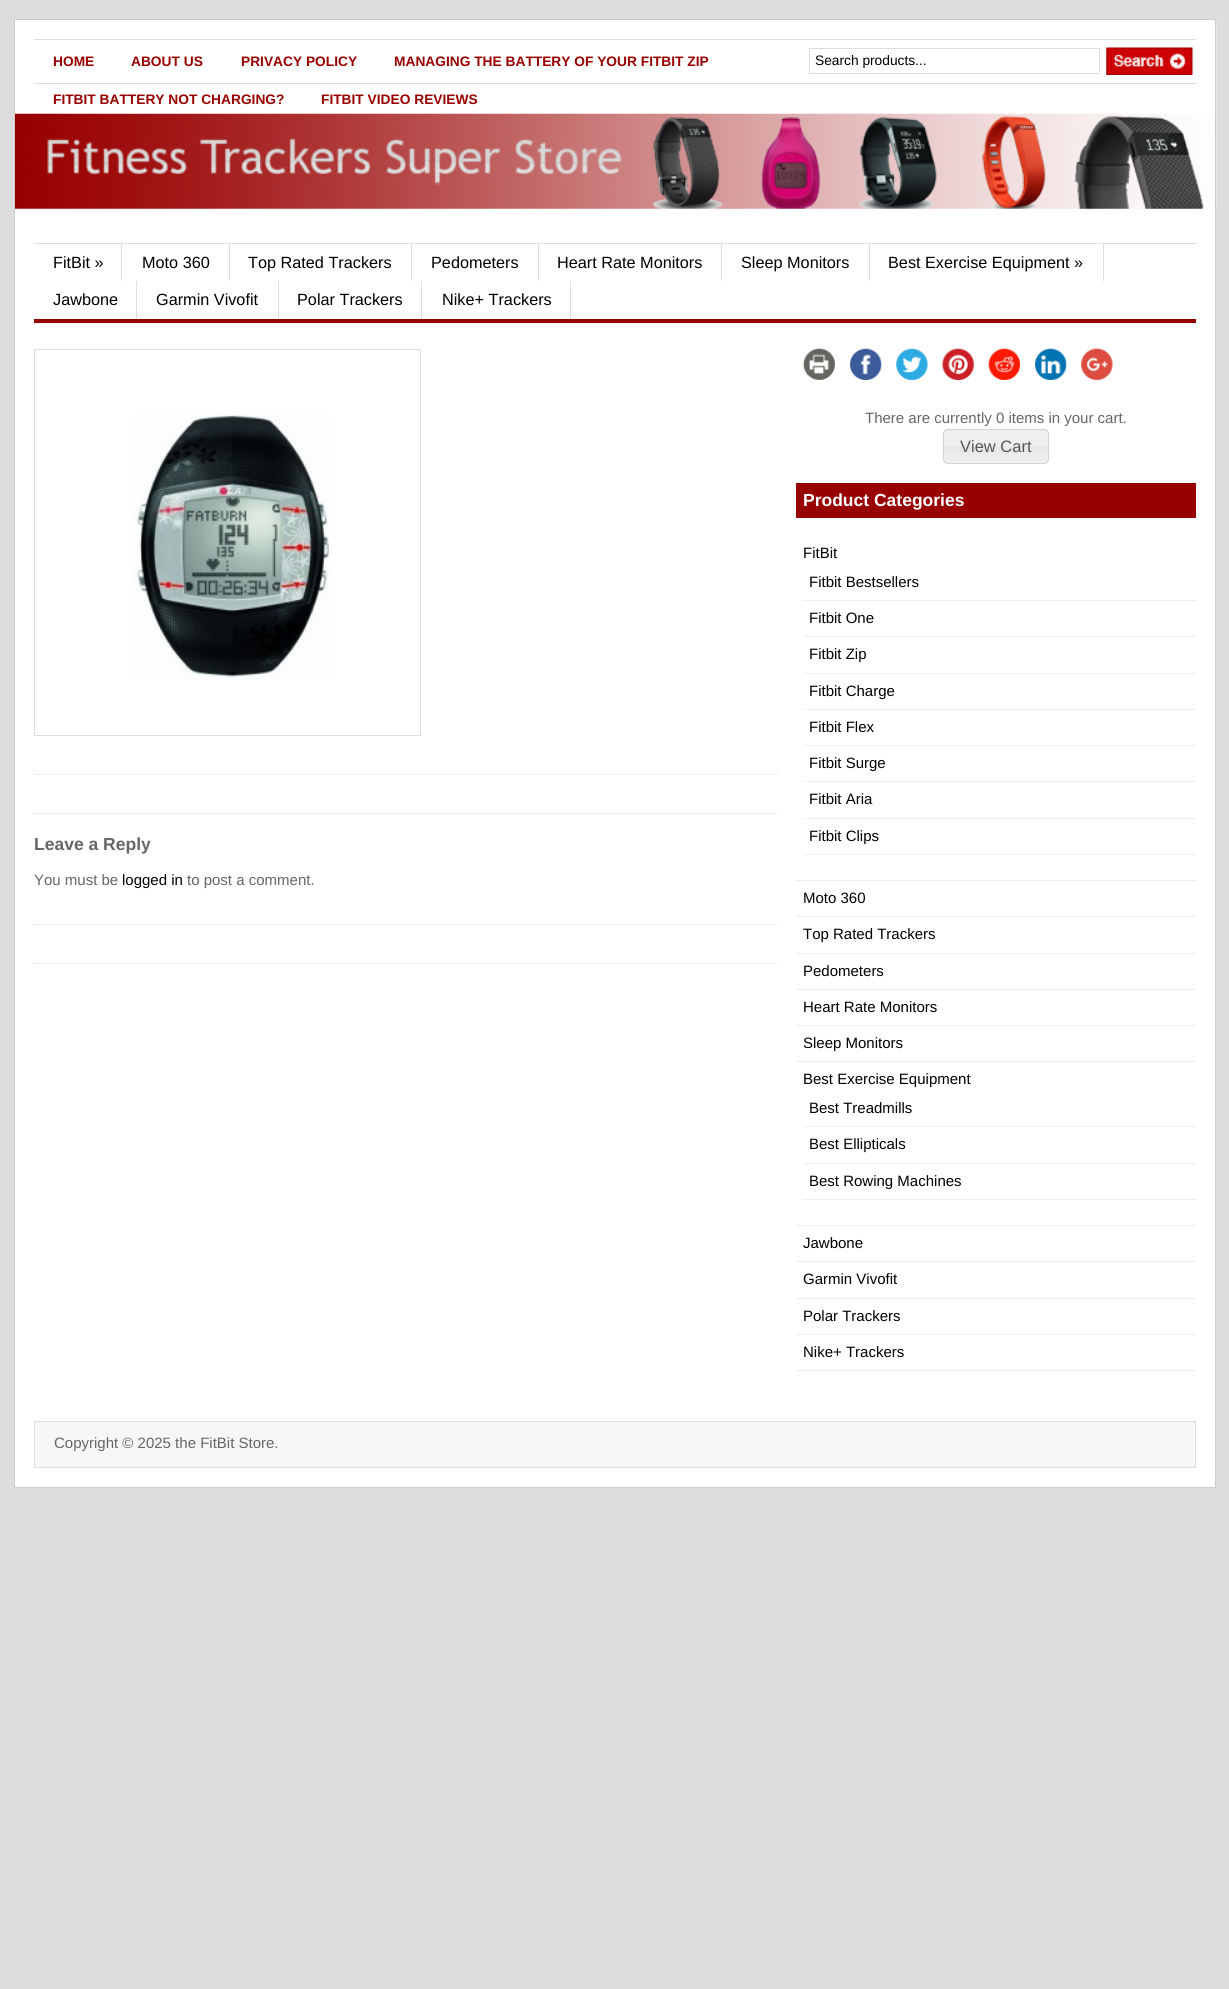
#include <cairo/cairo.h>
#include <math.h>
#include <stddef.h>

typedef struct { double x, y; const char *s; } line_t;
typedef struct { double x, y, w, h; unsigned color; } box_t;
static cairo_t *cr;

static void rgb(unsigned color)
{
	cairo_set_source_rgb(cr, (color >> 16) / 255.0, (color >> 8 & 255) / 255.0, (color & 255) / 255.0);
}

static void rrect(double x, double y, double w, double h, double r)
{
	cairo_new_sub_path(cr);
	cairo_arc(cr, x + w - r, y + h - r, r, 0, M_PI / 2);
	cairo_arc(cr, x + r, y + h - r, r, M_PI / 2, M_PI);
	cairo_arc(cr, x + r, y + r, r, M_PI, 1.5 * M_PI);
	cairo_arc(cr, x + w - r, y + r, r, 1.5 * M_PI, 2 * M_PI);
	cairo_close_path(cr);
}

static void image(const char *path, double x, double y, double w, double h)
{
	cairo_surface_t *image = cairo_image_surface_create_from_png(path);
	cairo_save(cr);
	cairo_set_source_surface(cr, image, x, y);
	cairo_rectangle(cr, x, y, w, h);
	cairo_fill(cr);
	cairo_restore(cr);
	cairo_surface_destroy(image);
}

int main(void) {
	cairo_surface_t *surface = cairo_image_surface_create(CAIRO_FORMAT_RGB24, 1229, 1989);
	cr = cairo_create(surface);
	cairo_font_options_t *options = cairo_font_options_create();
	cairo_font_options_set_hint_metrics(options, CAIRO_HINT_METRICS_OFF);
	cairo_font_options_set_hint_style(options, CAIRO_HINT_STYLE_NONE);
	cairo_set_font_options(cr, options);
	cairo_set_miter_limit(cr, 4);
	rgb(0xdddddd);
	cairo_paint(cr);
	rgb(0xffffff);
	cairo_rectangle(cr, 15, 208, 1200, 1279);
	cairo_fill(cr);
	image("img/1.png", 15, 20, 1202, 189);
	cairo_rectangle(cr, 14.5, 19.5, 1201, 1468);
	rgb(0xcccccc);
	cairo_set_line_width(cr, 1);
	cairo_stroke(cr);
	rgb(0xdddddd);
	cairo_rectangle(cr, 34, 39, 1162, 1);
	cairo_fill(cr);
	cairo_rectangle(cr, 34, 83, 1162, 1);
	cairo_fill(cr);
	cairo_rectangle(cr, 809.5, 48.5, 290, 25);
	cairo_stroke(cr);
	image("img/2.png", 1106, 47, 87, 28);
	{
		static const box_t items[] = {
			{34, 243, 1162, 1, 0xdddddd},
			{34, 319, 1162, 4, 0x990000},
			{121, 244, 1, 37, 0xdddddd},
			{229, 244, 1, 37, 0xdddddd},
			{411, 244, 1, 37, 0xdddddd},
			{538, 244, 1, 37, 0xdddddd},
			{721, 244, 1, 37, 0xdddddd},
			{869, 244, 1, 37, 0xdddddd},
			{1103, 244, 1, 37, 0xdddddd},
			{136, 281, 1, 38, 0xdddddd},
			{278, 281, 1, 38, 0xdddddd},
			{421, 281, 1, 38, 0xdddddd},
			{570, 281, 1, 38, 0xdddddd},
		};
		for (size_t i = 0; i < sizeof items / sizeof *items; i++) {
			rgb(items[i].color);
			cairo_rectangle(cr, items[i].x, items[i].y, items[i].w, items[i].h);
			cairo_fill(cr);
		}
	}
	cairo_rectangle(cr, 34.5, 349.5, 386, 386);
	cairo_stroke(cr);
	image("img/3.png", 131, 414, 199, 266);
	{
		static const box_t items[] = {
			{34, 774, 744, 1, 0xeeeeee},
			{34, 813, 744, 1, 0xeeeeee},
			{34, 924, 744, 1, 0xeeeeee},
			{34, 963, 744, 1, 0xeeeeee},
		};
		for (size_t i = 0; i < sizeof items / sizeof *items; i++) {
			rgb(items[i].color);
			cairo_rectangle(cr, items[i].x, items[i].y, items[i].w, items[i].h);
			cairo_fill(cr);
		}
	}
	image("img/4.png", 803, 348, 32, 32);
	image("img/5.png", 850, 348, 32, 32);
	image("img/6.png", 896, 348, 32, 32);
	image("img/7.png", 942, 348, 32, 32);
	image("img/8.png", 988, 348, 32, 32);
	image("img/9.png", 1035, 348, 32, 32);
	image("img/10.png", 1081, 348, 32, 32);
	image("img/11.png", 942, 429, 107, 35);
	rrect(943.5, 429.5, 105, 34, 4.5);
	rgb(0xd3d3d3);
	cairo_stroke(cr);
	{
		static const box_t items[] = {
			{796, 483, 400, 35, 0x990000},
			{796, 880, 400, 1, 0xeeeeee},
			{803, 600, 393, 1, 0xeeeeee},
			{803, 636, 393, 1, 0xeeeeee},
			{803, 673, 393, 1, 0xeeeeee},
			{803, 709, 393, 1, 0xeeeeee},
			{803, 745, 393, 1, 0xeeeeee},
			{803, 781, 393, 1, 0xeeeeee},
			{803, 818, 393, 1, 0xeeeeee},
			{803, 854, 393, 1, 0xeeeeee},
			{796, 916, 400, 1, 0xeeeeee},
			{796, 953, 400, 1, 0xeeeeee},
			{796, 989, 400, 1, 0xeeeeee},
			{796, 1025, 400, 1, 0xeeeeee},
			{796, 1061, 400, 1, 0xeeeeee},
			{796, 1225, 400, 1, 0xeeeeee},
			{803, 1126, 393, 1, 0xeeeeee},
			{803, 1163, 393, 1, 0xeeeeee},
			{803, 1199, 393, 1, 0xeeeeee},
			{796, 1261, 400, 1, 0xeeeeee},
			{796, 1298, 400, 1, 0xeeeeee},
			{796, 1334, 400, 1, 0xeeeeee},
			{796, 1370, 400, 1, 0xeeeeee},
		};
		for (size_t i = 0; i < sizeof items / sizeof *items; i++) {
			rgb(items[i].color);
			cairo_rectangle(cr, items[i].x, items[i].y, items[i].w, items[i].h);
			cairo_fill(cr);
		}
	}
	rgb(0xf7f7f7);
	cairo_rectangle(cr, 34.5, 1421.5, 1161, 46);
	cairo_fill_preserve(cr);
	rgb(0xdddddd);
	cairo_stroke(cr);
	cairo_select_font_face(cr, "Liberation Sans", CAIRO_FONT_SLANT_NORMAL, CAIRO_FONT_WEIGHT_BOLD);
	cairo_set_font_size(cr, 13.75);
	rgb(0x990000);
	{
		static const line_t items[] = {
			{53, 66, "HOME"},
			{131, 66, "ABOUT US"},
			{241, 66, "PRIVACY POLICY"},
			{394, 66, "MANAGING THE BATTERY OF YOUR FITBIT ZIP"},
			{53, 104, "FITBIT BATTERY NOT CHARGING?"},
			{321, 104, "FITBIT VIDEO REVIEWS"},
		};
		for (size_t i = 0; i < sizeof items / sizeof *items; i++) {
			cairo_move_to(cr, items[i].x, items[i].y);
			cairo_show_text(cr, items[i].s);
		}
	}
	cairo_select_font_face(cr, "Liberation Sans", CAIRO_FONT_SLANT_NORMAL, CAIRO_FONT_WEIGHT_NORMAL);
	rgb(0x000000);
	cairo_move_to(cr, 815, 65);
	cairo_show_text(cr, "Search products...");
	cairo_set_font_size(cr, 16.25);
	{
		static const line_t items[] = {
			{53, 268, "FitBit »"},
			{142, 268, "Moto 360"},
			{248, 268, "Top Rated Trackers"},
			{431, 268, "Pedometers"},
			{557, 268, "Heart Rate Monitors"},
			{741, 268, "Sleep Monitors"},
			{888, 268, "Best Exercise Equipment »"},
			{53, 305, "Jawbone"},
			{156, 305, "Garmin Vivofit"},
			{297, 305, "Polar Trackers"},
			{442, 305, "Nike+ Trackers"},
		};
		for (size_t i = 0; i < sizeof items / sizeof *items; i++) {
			cairo_move_to(cr, items[i].x, items[i].y);
			cairo_show_text(cr, items[i].s);
		}
	}
	cairo_select_font_face(cr, "Liberation Sans", CAIRO_FONT_SLANT_NORMAL, CAIRO_FONT_WEIGHT_BOLD);
	cairo_set_font_size(cr, 17.5);
	rgb(0x666666);
	cairo_move_to(cr, 34, 850);
	cairo_show_text(cr, "Leave a Reply");
	cairo_select_font_face(cr, "Liberation Sans", CAIRO_FONT_SLANT_NORMAL, CAIRO_FONT_WEIGHT_NORMAL);
	cairo_set_font_size(cr, 15);
	cairo_move_to(cr, 34, 885);
	cairo_show_text(cr, "You must be");
	rgb(0x000000);
	cairo_move_to(cr, 122, 885);
	cairo_show_text(cr, "logged in");
	rgb(0x666666);
	cairo_move_to(cr, 187, 885);
	cairo_show_text(cr, "to post a comment.");
	cairo_move_to(cr, 865, 423);
	cairo_show_text(cr, "There are currently 0 items in your cart.");
	cairo_set_font_size(cr, 16.5);
	rgb(0x555555);
	cairo_move_to(cr, 960, 452);
	cairo_show_text(cr, "View Cart");
	cairo_select_font_face(cr, "Liberation Sans", CAIRO_FONT_SLANT_NORMAL, CAIRO_FONT_WEIGHT_BOLD);
	cairo_set_font_size(cr, 17.5);
	rgb(0xffffff);
	cairo_move_to(cr, 803, 506);
	cairo_show_text(cr, "Product Categories");
	cairo_select_font_face(cr, "Liberation Sans", CAIRO_FONT_SLANT_NORMAL, CAIRO_FONT_WEIGHT_NORMAL);
	cairo_set_font_size(cr, 15);
	rgb(0x000000);
	{
		static const line_t items[] = {
			{803, 558, "FitBit"},
			{809, 587, "Fitbit Bestsellers"},
			{809, 623, "Fitbit One"},
			{809, 659, "Fitbit Zip"},
			{809, 696, "Fitbit Charge"},
			{809, 732, "Fitbit Flex"},
			{809, 768, "Fitbit Surge"},
			{809, 804, "Fitbit Aria"},
			{809, 841, "Fitbit Clips"},
			{803, 903, "Moto 360"},
			{803, 939, "Top Rated Trackers"},
			{803, 976, "Pedometers"},
			{803, 1012, "Heart Rate Monitors"},
			{803, 1048, "Sleep Monitors"},
			{803, 1084, "Best Exercise Equipment"},
			{809, 1113, "Best Treadmills"},
			{809, 1149, "Best Ellipticals"},
			{809, 1186, "Best Rowing Machines"},
			{803, 1248, "Jawbone"},
			{803, 1284, "Garmin Vivofit"},
			{803, 1321, "Polar Trackers"},
			{803, 1357, "Nike+ Trackers"},
		};
		for (size_t i = 0; i < sizeof items / sizeof *items; i++) {
			cairo_move_to(cr, items[i].x, items[i].y);
			cairo_show_text(cr, items[i].s);
		}
	}
	rgb(0x666666);
	cairo_move_to(cr, 54, 1448);
	cairo_show_text(cr, "Copyright © 2025 the FitBit Store.");
	cairo_surface_write_to_png(surface, "page.png");
	cairo_font_options_destroy(options);
	cairo_destroy(cr);
	cairo_surface_destroy(surface);
	return 0;
}
